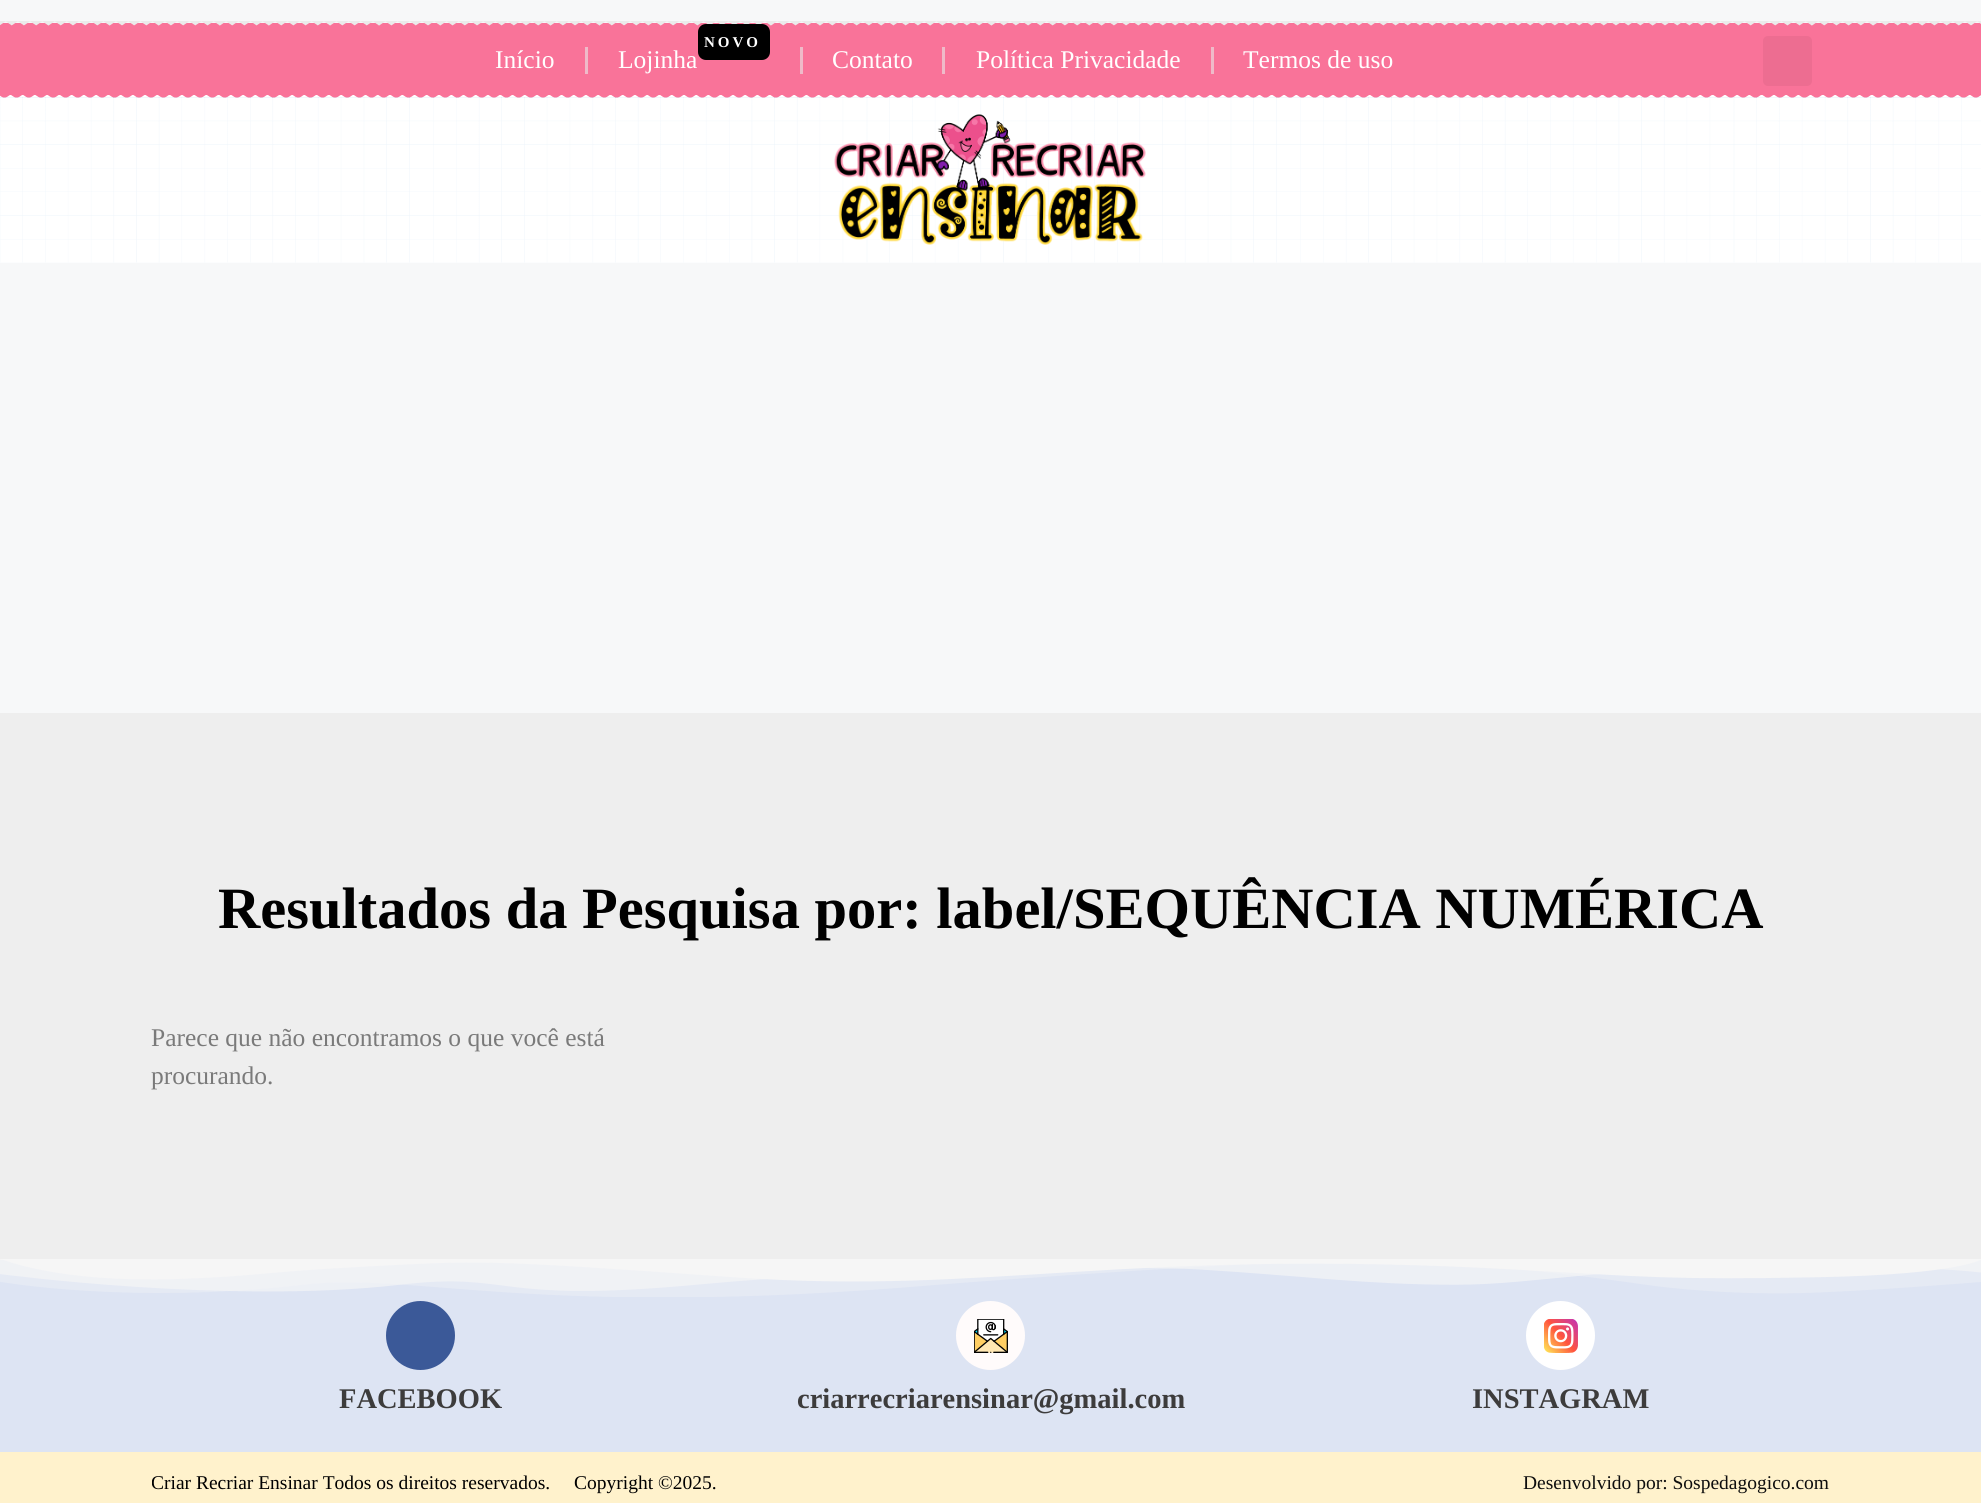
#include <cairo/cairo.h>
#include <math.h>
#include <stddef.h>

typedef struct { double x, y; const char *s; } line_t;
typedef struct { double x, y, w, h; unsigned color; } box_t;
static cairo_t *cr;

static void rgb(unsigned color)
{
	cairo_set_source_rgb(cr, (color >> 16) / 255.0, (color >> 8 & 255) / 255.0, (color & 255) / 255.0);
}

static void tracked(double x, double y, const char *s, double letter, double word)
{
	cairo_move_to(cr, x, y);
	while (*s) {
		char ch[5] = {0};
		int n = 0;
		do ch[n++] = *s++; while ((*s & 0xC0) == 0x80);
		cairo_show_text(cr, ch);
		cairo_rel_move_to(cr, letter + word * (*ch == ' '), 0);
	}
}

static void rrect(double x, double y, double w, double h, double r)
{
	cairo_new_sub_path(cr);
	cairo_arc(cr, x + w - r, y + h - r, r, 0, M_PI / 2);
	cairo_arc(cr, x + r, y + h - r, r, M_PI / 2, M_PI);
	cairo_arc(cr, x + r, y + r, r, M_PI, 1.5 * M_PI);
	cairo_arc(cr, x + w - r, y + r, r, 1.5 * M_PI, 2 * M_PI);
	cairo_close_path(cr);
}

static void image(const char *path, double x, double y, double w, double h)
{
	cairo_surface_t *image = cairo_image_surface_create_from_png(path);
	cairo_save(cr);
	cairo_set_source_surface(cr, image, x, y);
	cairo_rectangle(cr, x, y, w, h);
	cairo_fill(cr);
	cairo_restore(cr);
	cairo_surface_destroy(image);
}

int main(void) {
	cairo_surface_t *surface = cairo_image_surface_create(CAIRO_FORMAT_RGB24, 1981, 1503);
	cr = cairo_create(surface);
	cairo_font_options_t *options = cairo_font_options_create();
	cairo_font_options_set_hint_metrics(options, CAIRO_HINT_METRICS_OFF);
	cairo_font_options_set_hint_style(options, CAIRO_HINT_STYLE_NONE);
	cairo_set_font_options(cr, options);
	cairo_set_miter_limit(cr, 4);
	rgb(0xf7f8f9);
	cairo_paint(cr);
	rgb(0xf97399);
	cairo_rectangle(cr, 0, 23, 1981, 75);
	cairo_fill(cr);
	image("img/1.png", 0, 21, 1981, 5);
	rgb(0xefbac9);
	cairo_rectangle(cr, 585, 47, 3, 27);
	cairo_fill(cr);
	rgb(0x000000);
	rrect(698, 24, 72, 36, 8);
	cairo_fill(cr);
	{
		static const box_t items[] = {
			{800, 47, 3, 27, 0xefbac9},
			{942, 47, 3, 27, 0xefbac9},
			{1211, 47, 3, 27, 0xefbac9},
		};
		for (size_t i = 0; i < sizeof items / sizeof *items; i++) {
			rgb(items[i].color);
			cairo_rectangle(cr, items[i].x, items[i].y, items[i].w, items[i].h);
			cairo_fill(cr);
		}
	}
	rgb(0xed6d91);
	rrect(1763, 36, 49, 50, 5);
	cairo_fill(cr);
	image("img/2.png", 0, 95, 1981, 3);
	image("img/3.png", 0, 97, 1981, 166);
	cairo_set_source_rgba(cr, 1, 1, 1, 0.82);
	cairo_rectangle(cr, 0, 98, 1981, 165);
	cairo_fill(cr);
	image("img/4.png", 834, 114, 312, 131);
	rgb(0xeeeeee);
	cairo_rectangle(cr, 0, 713, 1981, 547);
	cairo_fill(cr);
	rgb(0xdde4f3);
	cairo_rectangle(cr, 0, 1260, 1981, 192);
	cairo_fill(cr);
	image("img/5.png", 0, 1259, 1981, 38);
	rgb(0x3b5998);
	cairo_arc(cr, 420.5, 1335.5, 34.5, 0, 2 * M_PI);
	cairo_fill(cr);
	rgb(0xfffbfb);
	cairo_arc(cr, 990.5, 1335.5, 34.5, 0, 2 * M_PI);
	cairo_fill(cr);
	image("img/6.png", 974, 1319, 34, 34);
	rgb(0xffffff);
	cairo_arc(cr, 1560.5, 1335.5, 34.5, 0, 2 * M_PI);
	cairo_fill(cr);
	image("img/7.png", 1544, 1319, 34, 34);
	rgb(0xfff2cc);
	cairo_rectangle(cr, 0, 1452, 1981, 51);
	cairo_fill(cr);
	cairo_select_font_face(cr, "Liberation Serif", CAIRO_FONT_SLANT_NORMAL, CAIRO_FONT_WEIGHT_NORMAL);
	cairo_set_font_size(cr, 25.5);
	rgb(0xffffff);
	cairo_move_to(cr, 495, 68);
	cairo_show_text(cr, "Início");
	cairo_select_font_face(cr, "Liberation Serif", CAIRO_FONT_SLANT_NORMAL, CAIRO_FONT_WEIGHT_BOLD);
	cairo_set_font_size(cr, 15);
	tracked(704, 47, "NOVO", 3, 0);
	cairo_select_font_face(cr, "Liberation Serif", CAIRO_FONT_SLANT_NORMAL, CAIRO_FONT_WEIGHT_NORMAL);
	cairo_set_font_size(cr, 25.5);
	{
		static const line_t items[] = {
			{618, 68, "Lojinha"},
			{832, 68, "Contato"},
			{976, 68, "Política Privacidade"},
			{1243, 68, "Termos de uso"},
		};
		for (size_t i = 0; i < sizeof items / sizeof *items; i++) {
			cairo_move_to(cr, items[i].x, items[i].y);
			cairo_show_text(cr, items[i].s);
		}
	}
	cairo_select_font_face(cr, "Liberation Serif", CAIRO_FONT_SLANT_NORMAL, CAIRO_FONT_WEIGHT_BOLD);
	cairo_set_font_size(cr, 58.5);
	rgb(0x000000);
	cairo_move_to(cr, 218, 928);
	cairo_show_text(cr, "Resultados da Pesquisa por: label/SEQUÊNCIA NUMÉRICA");
	cairo_select_font_face(cr, "Liberation Serif", CAIRO_FONT_SLANT_NORMAL, CAIRO_FONT_WEIGHT_NORMAL);
	cairo_set_font_size(cr, 25.5);
	rgb(0x7a7a7a);
	cairo_move_to(cr, 151, 1046);
	cairo_show_text(cr, "Parece que não encontramos o que você está");
	cairo_move_to(cr, 151, 1084);
	cairo_show_text(cr, "procurando.");
	cairo_select_font_face(cr, "Liberation Serif", CAIRO_FONT_SLANT_NORMAL, CAIRO_FONT_WEIGHT_BOLD);
	cairo_set_font_size(cr, 28.5);
	rgb(0x3d3c3c);
	{
		static const line_t items[] = {
			{339, 1408, "FACEBOOK"},
			{797, 1408, "criarrecriarensinar@gmail.com"},
			{1472, 1408, "INSTAGRAM"},
		};
		for (size_t i = 0; i < sizeof items / sizeof *items; i++) {
			cairo_move_to(cr, items[i].x, items[i].y);
			cairo_show_text(cr, items[i].s);
		}
	}
	cairo_save(cr);
	cairo_rectangle(cr, 152, 1467, 1090, 30);
	cairo_clip(cr);
	cairo_select_font_face(cr, "Liberation Serif", CAIRO_FONT_SLANT_NORMAL, CAIRO_FONT_WEIGHT_NORMAL);
	cairo_set_font_size(cr, 19.5);
	rgb(0x000000);
	cairo_move_to(cr, 151, 1489);
	cairo_show_text(cr, "Criar Recriar Ensinar Todos os direitos reservados.");
	cairo_restore(cr);
	cairo_select_font_face(cr, "Liberation Serif", CAIRO_FONT_SLANT_NORMAL, CAIRO_FONT_WEIGHT_NORMAL);
	cairo_set_font_size(cr, 19.5);
	rgb(0x000000);
	cairo_move_to(cr, 574, 1489);
	cairo_show_text(cr, "Copyright ©2025.");
	rgb(0x0e0e0e);
	cairo_move_to(cr, 1523, 1489);
	cairo_show_text(cr, "Desenvolvido por: Sospedagogico.com");
	cairo_surface_write_to_png(surface, "page.png");
	cairo_font_options_destroy(options);
	cairo_destroy(cr);
	cairo_surface_destroy(surface);
	return 0;
}
